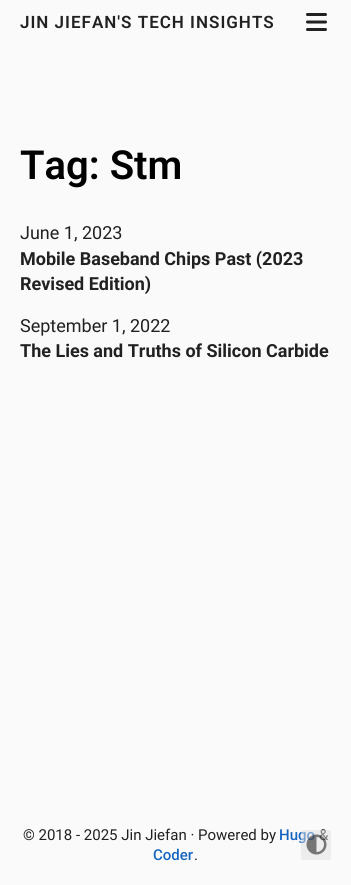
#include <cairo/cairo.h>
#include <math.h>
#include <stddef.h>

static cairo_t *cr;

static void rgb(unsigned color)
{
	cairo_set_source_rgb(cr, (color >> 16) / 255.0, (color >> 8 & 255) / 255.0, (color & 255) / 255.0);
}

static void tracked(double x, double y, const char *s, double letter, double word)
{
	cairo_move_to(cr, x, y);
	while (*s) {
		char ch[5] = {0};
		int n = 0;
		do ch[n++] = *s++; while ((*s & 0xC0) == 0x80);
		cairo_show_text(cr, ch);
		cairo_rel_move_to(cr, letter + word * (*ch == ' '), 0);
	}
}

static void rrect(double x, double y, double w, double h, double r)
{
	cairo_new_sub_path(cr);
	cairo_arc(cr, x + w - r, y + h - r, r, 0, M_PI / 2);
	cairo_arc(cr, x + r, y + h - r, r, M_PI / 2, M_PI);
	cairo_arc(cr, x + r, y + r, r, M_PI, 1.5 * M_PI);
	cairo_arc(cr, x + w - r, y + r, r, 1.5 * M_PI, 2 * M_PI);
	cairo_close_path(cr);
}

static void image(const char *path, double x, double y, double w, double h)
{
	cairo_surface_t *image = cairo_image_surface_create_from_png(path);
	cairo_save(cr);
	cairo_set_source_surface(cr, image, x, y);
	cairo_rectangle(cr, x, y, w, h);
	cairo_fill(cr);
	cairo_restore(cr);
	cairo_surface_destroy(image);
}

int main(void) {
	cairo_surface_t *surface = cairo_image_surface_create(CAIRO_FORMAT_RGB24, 351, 885);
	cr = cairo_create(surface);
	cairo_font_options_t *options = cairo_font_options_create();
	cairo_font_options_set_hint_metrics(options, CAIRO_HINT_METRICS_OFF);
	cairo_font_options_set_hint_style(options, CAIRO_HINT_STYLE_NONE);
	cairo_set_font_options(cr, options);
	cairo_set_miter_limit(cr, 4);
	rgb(0xfafafa);
	cairo_paint(cr);
	image("img/1.png", 306, 13, 21, 18);
	cairo_select_font_face(cr, "Roboto SemiBold", CAIRO_FONT_SLANT_NORMAL, CAIRO_FONT_WEIGHT_NORMAL);
	cairo_set_font_size(cr, 17);
	rgb(0x212121);
	tracked(20, 28, "JIN JIEFAN'S TECH INSIGHTS", 1, 0);
	cairo_set_font_size(cr, 40);
	rgb(0x000000);
	cairo_move_to(cr, 20, 179);
	cairo_show_text(cr, "Tag: Stm");
	cairo_select_font_face(cr, "Roboto", CAIRO_FONT_SLANT_NORMAL, CAIRO_FONT_WEIGHT_NORMAL);
	cairo_set_font_size(cr, 18);
	rgb(0x212121);
	cairo_move_to(cr, 20, 239);
	cairo_show_text(cr, "June 1, 2023");
	cairo_select_font_face(cr, "Roboto", CAIRO_FONT_SLANT_NORMAL, CAIRO_FONT_WEIGHT_BOLD);
	cairo_move_to(cr, 20, 265);
	cairo_show_text(cr, "Mobile Baseband Chips Past (2023");
	cairo_move_to(cr, 20, 290);
	cairo_show_text(cr, "Revised Edition)");
	cairo_select_font_face(cr, "Roboto", CAIRO_FONT_SLANT_NORMAL, CAIRO_FONT_WEIGHT_NORMAL);
	cairo_move_to(cr, 20, 332);
	cairo_show_text(cr, "September 1, 2022");
	cairo_select_font_face(cr, "Roboto", CAIRO_FONT_SLANT_NORMAL, CAIRO_FONT_WEIGHT_BOLD);
	cairo_move_to(cr, 20, 357);
	cairo_show_text(cr, "The Lies and Truths of Silicon Carbide");
	cairo_select_font_face(cr, "Roboto", CAIRO_FONT_SLANT_NORMAL, CAIRO_FONT_WEIGHT_NORMAL);
	cairo_set_font_size(cr, 15);
	cairo_move_to(cr, 23, 840);
	cairo_show_text(cr, "© 2018 - 2025 Jin Jiefan · Powered by");
	cairo_select_font_face(cr, "Roboto Medium", CAIRO_FONT_SLANT_NORMAL, CAIRO_FONT_WEIGHT_NORMAL);
	rgb(0x1565c0);
	cairo_move_to(cr, 279, 840);
	cairo_show_text(cr, "Hugo");
	cairo_select_font_face(cr, "Roboto", CAIRO_FONT_SLANT_NORMAL, CAIRO_FONT_WEIGHT_NORMAL);
	rgb(0x212121);
	cairo_move_to(cr, 319, 840);
	cairo_show_text(cr, "&");
	cairo_select_font_face(cr, "Roboto Medium", CAIRO_FONT_SLANT_NORMAL, CAIRO_FONT_WEIGHT_NORMAL);
	rgb(0x1565c0);
	cairo_move_to(cr, 153, 860);
	cairo_show_text(cr, "Coder");
	cairo_select_font_face(cr, "Roboto", CAIRO_FONT_SLANT_NORMAL, CAIRO_FONT_WEIGHT_NORMAL);
	rgb(0x212121);
	cairo_move_to(cr, 194, 860);
	cairo_show_text(cr, ".");
	cairo_set_source_rgba(cr, 0.878, 0.878, 0.878, 0.5);
	rrect(301, 830, 30, 30, 2);
	cairo_fill(cr);
	image("img/2.png", 306, 834, 21, 21);
	cairo_surface_write_to_png(surface, "page.png");
	cairo_font_options_destroy(options);
	cairo_destroy(cr);
	cairo_surface_destroy(surface);
	return 0;
}
